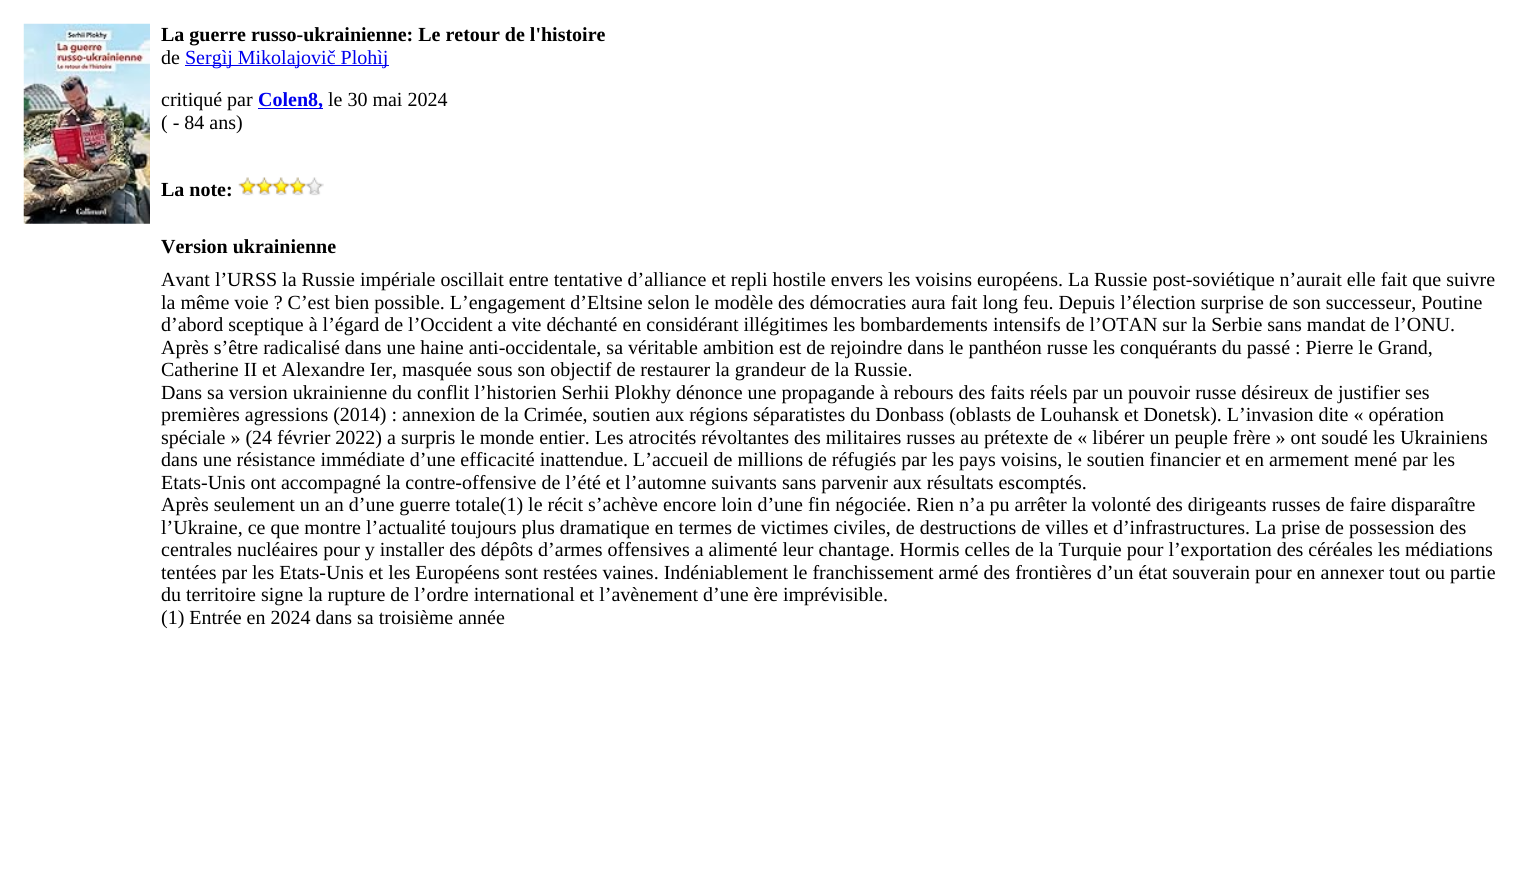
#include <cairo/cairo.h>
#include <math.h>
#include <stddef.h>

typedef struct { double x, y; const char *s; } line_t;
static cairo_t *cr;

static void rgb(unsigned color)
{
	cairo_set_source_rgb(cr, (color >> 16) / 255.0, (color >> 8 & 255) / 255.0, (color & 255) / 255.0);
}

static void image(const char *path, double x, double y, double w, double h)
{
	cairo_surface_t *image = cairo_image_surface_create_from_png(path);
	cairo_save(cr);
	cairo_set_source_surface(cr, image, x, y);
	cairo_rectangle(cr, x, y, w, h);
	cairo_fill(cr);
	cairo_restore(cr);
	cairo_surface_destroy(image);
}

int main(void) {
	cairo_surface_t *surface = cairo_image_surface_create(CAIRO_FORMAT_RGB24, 1525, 895);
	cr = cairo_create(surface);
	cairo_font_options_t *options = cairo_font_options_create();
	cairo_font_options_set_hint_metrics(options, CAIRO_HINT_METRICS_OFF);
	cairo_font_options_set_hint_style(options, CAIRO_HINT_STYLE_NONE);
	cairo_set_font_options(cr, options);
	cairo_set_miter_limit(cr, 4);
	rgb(0xffffff);
	cairo_paint(cr);
	image("img/1.png", 23, 23, 127, 201);
	rgb(0x0000ee);
	cairo_rectangle(cr, 185, 65, 204, 1);
	cairo_fill(cr);
	cairo_rectangle(cr, 258, 108, 65, 1);
	cairo_fill(cr);
	image("img/2.png", 238, 177, 86, 19);
	cairo_select_font_face(cr, "Liberation Serif", CAIRO_FONT_SLANT_NORMAL, CAIRO_FONT_WEIGHT_BOLD);
	cairo_set_font_size(cr, 20);
	rgb(0x000000);
	cairo_move_to(cr, 161, 41);
	cairo_show_text(cr, "La guerre russo-ukrainienne: Le retour de l'histoire");
	cairo_select_font_face(cr, "Liberation Serif", CAIRO_FONT_SLANT_NORMAL, CAIRO_FONT_WEIGHT_NORMAL);
	cairo_move_to(cr, 161, 64);
	cairo_show_text(cr, "de");
	rgb(0x0000ee);
	cairo_move_to(cr, 185, 64);
	cairo_show_text(cr, "Sergìj Mikolajovič Plohìj");
	rgb(0x000000);
	cairo_move_to(cr, 161, 106);
	cairo_show_text(cr, "critiqué par");
	cairo_select_font_face(cr, "Liberation Serif", CAIRO_FONT_SLANT_NORMAL, CAIRO_FONT_WEIGHT_BOLD);
	rgb(0x0000ee);
	cairo_move_to(cr, 258, 106);
	cairo_show_text(cr, "Colen8,");
	cairo_select_font_face(cr, "Liberation Serif", CAIRO_FONT_SLANT_NORMAL, CAIRO_FONT_WEIGHT_NORMAL);
	rgb(0x000000);
	cairo_move_to(cr, 328, 106);
	cairo_show_text(cr, "le 30 mai 2024");
	cairo_move_to(cr, 161, 129);
	cairo_show_text(cr, "( - 84 ans)");
	cairo_select_font_face(cr, "Liberation Serif", CAIRO_FONT_SLANT_NORMAL, CAIRO_FONT_WEIGHT_BOLD);
	cairo_move_to(cr, 161, 196);
	cairo_show_text(cr, "La note:");
	cairo_move_to(cr, 161, 253);
	cairo_show_text(cr, "Version ukrainienne");
	cairo_select_font_face(cr, "Liberation Serif", CAIRO_FONT_SLANT_NORMAL, CAIRO_FONT_WEIGHT_NORMAL);
	{
		static const line_t items[] = {
			{161, 286, "Avant l’URSS la Russie impériale oscillait entre tentative d’alliance et repli hostile envers les voisins européens. La Russie post-soviétique n’aurait elle fait que suivre"},
			{161, 309, "la même voie ? C’est bien possible. L’engagement d’Eltsine selon le modèle des démocraties aura fait long feu. Depuis l’élection surprise de son successeur, Poutine"},
			{161, 331, "d’abord sceptique à l’égard de l’Occident a vite déchanté en considérant illégitimes les bombardements intensifs de l’OTAN sur la Serbie sans mandat de l’ONU."},
			{161, 354, "Après s’être radicalisé dans une haine anti-occidentale, sa véritable ambition est de rejoindre dans le panthéon russe les conquérants du passé : Pierre le Grand,"},
			{161, 376, "Catherine II et Alexandre Ier, masquée sous son objectif de restaurer la grandeur de la Russie."},
			{161, 399, "Dans sa version ukrainienne du conflit l’historien Serhii Plokhy dénonce une propagande à rebours des faits réels par un pouvoir russe désireux de justifier ses"},
			{161, 421, "premières agressions (2014) : annexion de la Crimée, soutien aux régions séparatistes du Donbass (oblasts de Louhansk et Donetsk). L’invasion dite « opération"},
			{161, 444, "spéciale » (24 février 2022) a surpris le monde entier. Les atrocités révoltantes des militaires russes au prétexte de « libérer un peuple frère » ont soudé les Ukrainiens"},
			{161, 466, "dans une résistance immédiate d’une efficacité inattendue. L’accueil de millions de réfugiés par les pays voisins, le soutien financier et en armement mené par les"},
			{161, 489, "Etats-Unis ont accompagné la contre-offensive de l’été et l’automne suivants sans parvenir aux résultats escomptés."},
			{161, 511, "Après seulement un an d’une guerre totale(1) le récit s’achève encore loin d’une fin négociée. Rien n’a pu arrêter la volonté des dirigeants russes de faire disparaître"},
			{161, 534, "l’Ukraine, ce que montre l’actualité toujours plus dramatique en termes de victimes civiles, de destructions de villes et d’infrastructures. La prise de possession des"},
			{161, 556, "centrales nucléaires pour y installer des dépôts d’armes offensives a alimenté leur chantage. Hormis celles de la Turquie pour l’exportation des céréales les médiations"},
			{161, 579, "tentées par les Etats-Unis et les Européens sont restées vaines. Indéniablement le franchissement armé des frontières d’un état souverain pour en annexer tout ou partie"},
			{161, 601, "du territoire signe la rupture de l’ordre international et l’avènement d’une ère imprévisible."},
			{161, 624, "(1) Entrée en 2024 dans sa troisième année"},
		};
		for (size_t i = 0; i < sizeof items / sizeof *items; i++) {
			cairo_move_to(cr, items[i].x, items[i].y);
			cairo_show_text(cr, items[i].s);
		}
	}
	cairo_surface_write_to_png(surface, "page.png");
	cairo_font_options_destroy(options);
	cairo_destroy(cr);
	cairo_surface_destroy(surface);
	return 0;
}
